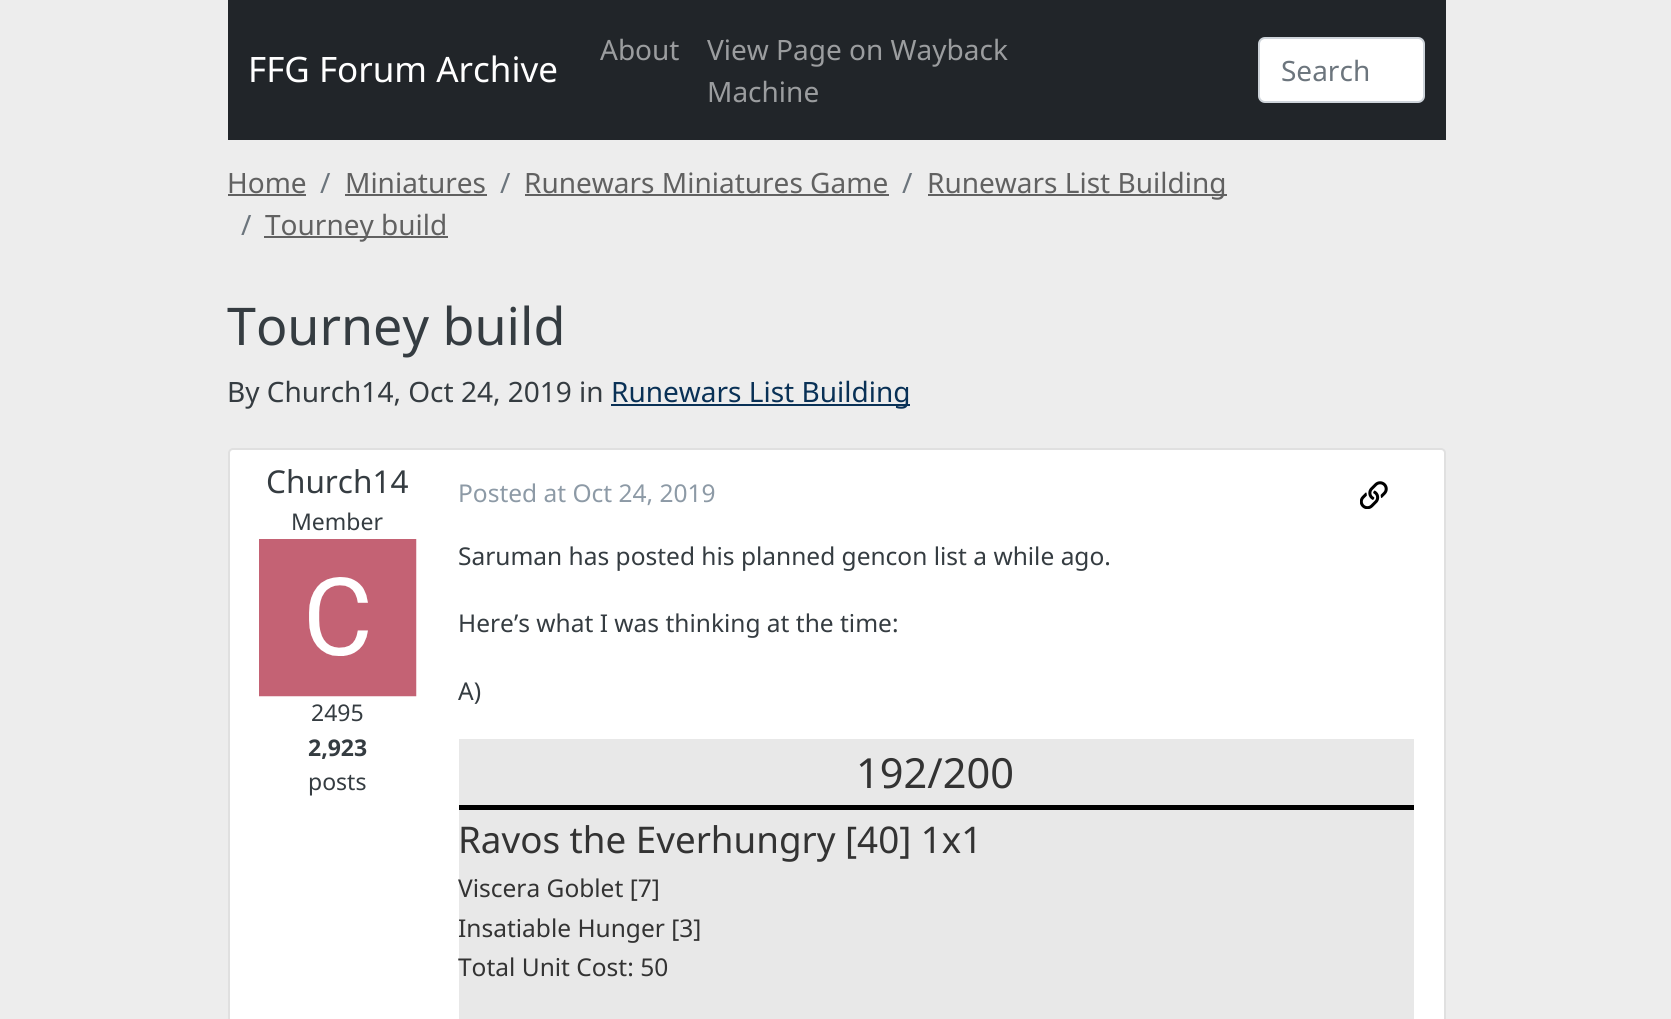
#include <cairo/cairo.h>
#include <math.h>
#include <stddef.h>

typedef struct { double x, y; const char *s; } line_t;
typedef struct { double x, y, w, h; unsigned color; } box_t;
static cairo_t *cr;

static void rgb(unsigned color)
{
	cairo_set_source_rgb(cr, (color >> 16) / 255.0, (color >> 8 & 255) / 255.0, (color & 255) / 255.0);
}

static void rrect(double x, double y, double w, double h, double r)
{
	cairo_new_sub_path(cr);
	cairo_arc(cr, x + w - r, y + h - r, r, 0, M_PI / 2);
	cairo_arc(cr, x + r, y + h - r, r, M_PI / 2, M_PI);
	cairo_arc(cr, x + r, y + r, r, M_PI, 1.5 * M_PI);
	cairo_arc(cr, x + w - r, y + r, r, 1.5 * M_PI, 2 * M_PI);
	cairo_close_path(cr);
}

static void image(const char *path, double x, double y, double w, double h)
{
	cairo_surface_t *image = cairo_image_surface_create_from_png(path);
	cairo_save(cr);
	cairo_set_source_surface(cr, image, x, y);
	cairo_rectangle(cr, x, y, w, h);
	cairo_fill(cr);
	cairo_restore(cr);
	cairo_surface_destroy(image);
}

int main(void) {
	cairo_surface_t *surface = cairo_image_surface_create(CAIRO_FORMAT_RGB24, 1671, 1019);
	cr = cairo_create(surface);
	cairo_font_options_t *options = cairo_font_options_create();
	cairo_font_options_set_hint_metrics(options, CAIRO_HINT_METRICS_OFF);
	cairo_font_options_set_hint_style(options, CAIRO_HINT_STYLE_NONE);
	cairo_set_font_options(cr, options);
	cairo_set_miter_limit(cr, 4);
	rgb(0xededed);
	cairo_paint(cr);
	rgb(0x212529);
	cairo_rectangle(cr, 228, 0, 1218, 140);
	cairo_fill(cr);
	rgb(0xffffff);
	rrect(1259, 38, 165, 64, 6);
	cairo_fill_preserve(cr);
	rgb(0xced4da);
	cairo_stroke(cr);
	{
		static const box_t items[] = {
			{228, 194, 78, 2, 0x616161},
			{345, 194, 142, 2, 0x616161},
			{525, 194, 364, 2, 0x616161},
			{928, 194, 299, 2, 0x616161},
			{264, 236, 184, 2, 0x616161},
			{611, 404, 299, 2, 0x093156},
		};
		for (size_t i = 0; i < sizeof items / sizeof *items; i++) {
			rgb(items[i].color);
			cairo_rectangle(cr, items[i].x, items[i].y, items[i].w, items[i].h);
			cairo_fill(cr);
		}
	}
	rgb(0xffffff);
	rrect(229, 449, 1216, 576, 4);
	cairo_fill_preserve(cr);
	rgb(0xe0e0e0);
	cairo_stroke(cr);
	image("img/1.png", 259, 539, 158, 158);
	image("img/2.png", 1360, 481, 28, 28);
	{
		static const box_t items[] = {
			{459, 739, 955, 66, 0xe8e8e8},
			{459, 805, 955, 5, 0x000000},
			{459, 810, 955, 209, 0xe8e8e8},
		};
		for (size_t i = 0; i < sizeof items / sizeof *items; i++) {
			rgb(items[i].color);
			cairo_rectangle(cr, items[i].x, items[i].y, items[i].w, items[i].h);
			cairo_fill(cr);
		}
	}
	cairo_select_font_face(cr, "Noto Sans", CAIRO_FONT_SLANT_NORMAL, CAIRO_FONT_WEIGHT_NORMAL);
	cairo_set_font_size(cr, 35);
	rgb(0xffffff);
	cairo_move_to(cr, 248, 82);
	cairo_show_text(cr, "FFG Forum Archive");
	cairo_set_font_size(cr, 28);
	rgb(0x9b9d9f);
	{
		static const line_t items[] = {
			{600, 60, "About"},
			{707, 60, "View Page on Wayback"},
			{707, 102, "Machine"},
		};
		for (size_t i = 0; i < sizeof items / sizeof *items; i++) {
			cairo_move_to(cr, items[i].x, items[i].y);
			cairo_show_text(cr, items[i].s);
		}
	}
	rgb(0x6c757d);
	cairo_move_to(cr, 1281, 81);
	cairo_show_text(cr, "Search");
	rgb(0x616161);
	cairo_move_to(cr, 227, 193);
	cairo_show_text(cr, "Home");
	rgb(0x6c757d);
	cairo_move_to(cr, 320, 193);
	cairo_show_text(cr, "/");
	rgb(0x616161);
	cairo_move_to(cr, 345, 193);
	cairo_show_text(cr, "Miniatures");
	rgb(0x6c757d);
	cairo_move_to(cr, 500, 193);
	cairo_show_text(cr, "/");
	rgb(0x616161);
	cairo_move_to(cr, 524, 193);
	cairo_show_text(cr, "Runewars Miniatures Game");
	rgb(0x6c757d);
	cairo_move_to(cr, 902, 193);
	cairo_show_text(cr, "/");
	rgb(0x616161);
	cairo_move_to(cr, 927, 193);
	cairo_show_text(cr, "Runewars List Building");
	rgb(0x6c757d);
	cairo_move_to(cr, 241, 235);
	cairo_show_text(cr, "/");
	rgb(0x616161);
	cairo_move_to(cr, 265, 235);
	cairo_show_text(cr, "Tourney build");
	cairo_set_font_size(cr, 52);
	rgb(0x353c41);
	cairo_move_to(cr, 227, 345);
	cairo_show_text(cr, "Tourney build");
	cairo_set_font_size(cr, 28);
	cairo_move_to(cr, 227, 402);
	cairo_show_text(cr, "By Church14, Oct 24, 2019 in");
	rgb(0x093156);
	cairo_move_to(cr, 611, 402);
	cairo_show_text(cr, "Runewars List Building");
	cairo_set_font_size(cr, 31.5);
	rgb(0x353c41);
	cairo_move_to(cr, 266, 493);
	cairo_show_text(cr, "Church14");
	cairo_set_font_size(cr, 23);
	cairo_move_to(cr, 291, 530);
	cairo_show_text(cr, "Member");
	cairo_move_to(cr, 311, 721);
	cairo_show_text(cr, "2495");
	cairo_select_font_face(cr, "Noto Sans", CAIRO_FONT_SLANT_NORMAL, CAIRO_FONT_WEIGHT_BOLD);
	cairo_move_to(cr, 308, 756);
	cairo_show_text(cr, "2,923");
	cairo_select_font_face(cr, "Noto Sans", CAIRO_FONT_SLANT_NORMAL, CAIRO_FONT_WEIGHT_NORMAL);
	cairo_move_to(cr, 308, 790);
	cairo_show_text(cr, "posts");
	cairo_set_font_size(cr, 24.5);
	rgb(0x8d9aa6);
	cairo_move_to(cr, 458, 502);
	cairo_show_text(cr, "Posted at Oct 24, 2019");
	rgb(0x353c41);
	{
		static const line_t items[] = {
			{458, 565, "Saruman has posted his planned gencon list a while ago."},
			{458, 632, "Here’s what I was thinking at the time:"},
			{458, 700, "A)"},
		};
		for (size_t i = 0; i < sizeof items / sizeof *items; i++) {
			cairo_move_to(cr, items[i].x, items[i].y);
			cairo_show_text(cr, items[i].s);
		}
	}
	cairo_set_font_size(cr, 41.5);
	rgb(0x333333);
	cairo_move_to(cr, 856, 788);
	cairo_show_text(cr, "192/200");
	cairo_set_font_size(cr, 36.75);
	cairo_move_to(cr, 458, 853);
	cairo_show_text(cr, "Ravos the Everhungry [40] 1x1");
	cairo_set_font_size(cr, 24.5);
	{
		static const line_t items[] = {
			{458, 897, "Viscera Goblet [7]"},
			{458, 937, "Insatiable Hunger [3]"},
			{458, 976, "Total Unit Cost: 50"},
		};
		for (size_t i = 0; i < sizeof items / sizeof *items; i++) {
			cairo_move_to(cr, items[i].x, items[i].y);
			cairo_show_text(cr, items[i].s);
		}
	}
	cairo_surface_write_to_png(surface, "page.png");
	cairo_font_options_destroy(options);
	cairo_destroy(cr);
	cairo_surface_destroy(surface);
	return 0;
}
